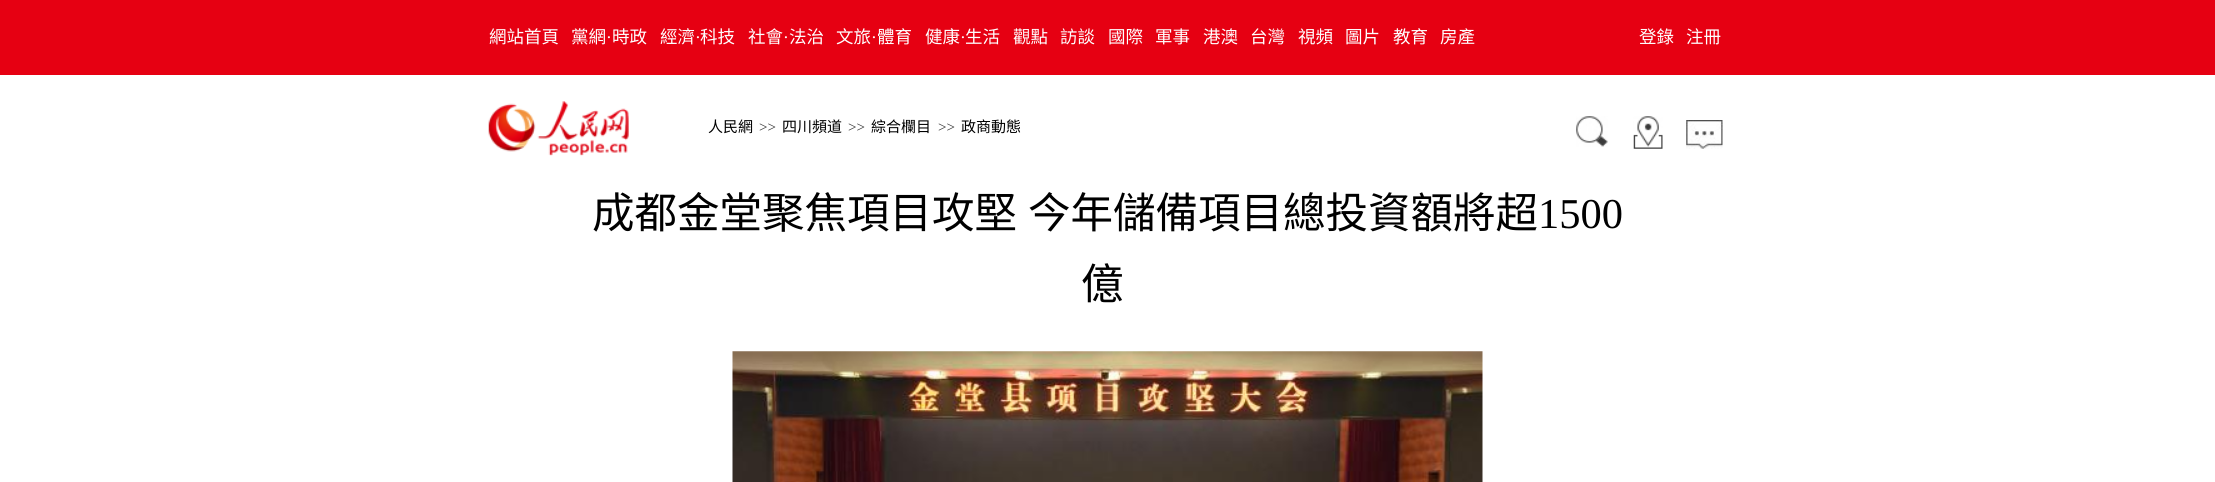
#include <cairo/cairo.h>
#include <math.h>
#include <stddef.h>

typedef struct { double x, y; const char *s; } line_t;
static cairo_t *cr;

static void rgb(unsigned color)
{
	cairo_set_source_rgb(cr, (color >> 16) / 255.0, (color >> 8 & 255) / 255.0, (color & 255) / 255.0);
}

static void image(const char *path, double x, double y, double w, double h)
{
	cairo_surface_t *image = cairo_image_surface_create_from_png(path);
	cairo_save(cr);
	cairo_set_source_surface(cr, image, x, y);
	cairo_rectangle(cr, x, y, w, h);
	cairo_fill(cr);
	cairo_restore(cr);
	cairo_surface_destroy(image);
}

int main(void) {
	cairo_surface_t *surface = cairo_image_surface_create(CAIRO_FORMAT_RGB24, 2215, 482);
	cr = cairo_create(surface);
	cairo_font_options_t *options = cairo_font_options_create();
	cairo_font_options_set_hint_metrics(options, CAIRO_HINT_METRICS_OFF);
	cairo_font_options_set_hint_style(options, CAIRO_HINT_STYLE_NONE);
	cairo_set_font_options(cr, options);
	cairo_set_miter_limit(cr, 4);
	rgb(0xffffff);
	cairo_paint(cr);
	rgb(0xe60012);
	cairo_rectangle(cr, 0, 0, 2215, 75);
	cairo_fill(cr);
	image("img/1.png", 488, 101, 141, 55);
	image("img/2.png", 1576, 116, 32, 31);
	image("img/3.png", 1633, 116, 30, 33);
	image("img/4.png", 1686, 120, 37, 29);
	image("img/5.png", 732, 351, 751, 131);
	cairo_select_font_face(cr, "Noto Sans CJK SC", CAIRO_FONT_SLANT_NORMAL, CAIRO_FONT_WEIGHT_NORMAL);
	cairo_set_font_size(cr, 17.5);
	rgb(0xffffff);
	cairo_move_to(cr, 489, 43);
	cairo_show_text(cr, "網站首頁");
	cairo_move_to(cr, 571, 43);
	cairo_show_text(cr, "黨網");
	cairo_select_font_face(cr, "Liberation Serif", CAIRO_FONT_SLANT_NORMAL, CAIRO_FONT_WEIGHT_NORMAL);
	cairo_move_to(cr, 606, 43);
	cairo_show_text(cr, "·");
	cairo_select_font_face(cr, "Noto Sans CJK SC", CAIRO_FONT_SLANT_NORMAL, CAIRO_FONT_WEIGHT_NORMAL);
	cairo_move_to(cr, 612, 43);
	cairo_show_text(cr, "時政");
	cairo_move_to(cr, 660, 43);
	cairo_show_text(cr, "經濟");
	cairo_select_font_face(cr, "Liberation Serif", CAIRO_FONT_SLANT_NORMAL, CAIRO_FONT_WEIGHT_NORMAL);
	cairo_move_to(cr, 695, 43);
	cairo_show_text(cr, "·");
	cairo_select_font_face(cr, "Noto Sans CJK SC", CAIRO_FONT_SLANT_NORMAL, CAIRO_FONT_WEIGHT_NORMAL);
	cairo_move_to(cr, 700, 43);
	cairo_show_text(cr, "科技");
	cairo_move_to(cr, 748, 43);
	cairo_show_text(cr, "社會");
	cairo_select_font_face(cr, "Liberation Serif", CAIRO_FONT_SLANT_NORMAL, CAIRO_FONT_WEIGHT_NORMAL);
	cairo_move_to(cr, 783, 43);
	cairo_show_text(cr, "·");
	cairo_select_font_face(cr, "Noto Sans CJK SC", CAIRO_FONT_SLANT_NORMAL, CAIRO_FONT_WEIGHT_NORMAL);
	cairo_move_to(cr, 789, 43);
	cairo_show_text(cr, "法治");
	cairo_move_to(cr, 836, 43);
	cairo_show_text(cr, "文旅");
	cairo_select_font_face(cr, "Liberation Serif", CAIRO_FONT_SLANT_NORMAL, CAIRO_FONT_WEIGHT_NORMAL);
	cairo_move_to(cr, 871, 43);
	cairo_show_text(cr, "·");
	cairo_select_font_face(cr, "Noto Sans CJK SC", CAIRO_FONT_SLANT_NORMAL, CAIRO_FONT_WEIGHT_NORMAL);
	cairo_move_to(cr, 877, 43);
	cairo_show_text(cr, "體育");
	cairo_move_to(cr, 925, 43);
	cairo_show_text(cr, "健康");
	cairo_select_font_face(cr, "Liberation Serif", CAIRO_FONT_SLANT_NORMAL, CAIRO_FONT_WEIGHT_NORMAL);
	cairo_move_to(cr, 960, 43);
	cairo_show_text(cr, "·");
	cairo_select_font_face(cr, "Noto Sans CJK SC", CAIRO_FONT_SLANT_NORMAL, CAIRO_FONT_WEIGHT_NORMAL);
	{
		static const line_t items[] = {
			{965, 43, "生活"},
			{1013, 43, "觀點"},
			{1060, 43, "訪談"},
			{1108, 43, "國際"},
			{1155, 43, "軍事"},
			{1203, 43, "港澳"},
			{1250, 43, "台灣"},
			{1298, 43, "視頻"},
			{1345, 43, "圖片"},
			{1393, 43, "教育"},
			{1440, 43, "房產"},
			{1639, 43, "登錄"},
			{1686, 43, "注冊"},
		};
		for (size_t i = 0; i < sizeof items / sizeof *items; i++) {
			cairo_move_to(cr, items[i].x, items[i].y);
			cairo_show_text(cr, items[i].s);
		}
	}
	cairo_set_font_size(cr, 15);
	rgb(0x000000);
	cairo_move_to(cr, 708, 132);
	cairo_show_text(cr, "人民網");
	cairo_select_font_face(cr, "Liberation Serif", CAIRO_FONT_SLANT_NORMAL, CAIRO_FONT_WEIGHT_NORMAL);
	rgb(0x333333);
	cairo_move_to(cr, 759, 132);
	cairo_show_text(cr, ">>");
	cairo_select_font_face(cr, "Noto Sans CJK SC", CAIRO_FONT_SLANT_NORMAL, CAIRO_FONT_WEIGHT_NORMAL);
	rgb(0x000000);
	cairo_move_to(cr, 782, 132);
	cairo_show_text(cr, "四川頻道");
	cairo_select_font_face(cr, "Liberation Serif", CAIRO_FONT_SLANT_NORMAL, CAIRO_FONT_WEIGHT_NORMAL);
	rgb(0x333333);
	cairo_move_to(cr, 848, 132);
	cairo_show_text(cr, ">>");
	cairo_select_font_face(cr, "Noto Sans CJK SC", CAIRO_FONT_SLANT_NORMAL, CAIRO_FONT_WEIGHT_NORMAL);
	rgb(0x000000);
	cairo_move_to(cr, 871, 132);
	cairo_show_text(cr, "綜合欄目");
	cairo_select_font_face(cr, "Liberation Serif", CAIRO_FONT_SLANT_NORMAL, CAIRO_FONT_WEIGHT_NORMAL);
	rgb(0x333333);
	cairo_move_to(cr, 938, 132);
	cairo_show_text(cr, ">>");
	cairo_select_font_face(cr, "Noto Sans CJK SC", CAIRO_FONT_SLANT_NORMAL, CAIRO_FONT_WEIGHT_NORMAL);
	rgb(0x000000);
	cairo_move_to(cr, 961, 132);
	cairo_show_text(cr, "政商動態");
	cairo_set_font_size(cr, 42.5);
	cairo_move_to(cr, 592, 228);
	cairo_show_text(cr, "成都金堂聚焦項目攻堅");
	cairo_move_to(cr, 1028, 228);
	cairo_show_text(cr, "今年儲備項目總投資額將超");
	cairo_select_font_face(cr, "Liberation Serif", CAIRO_FONT_SLANT_NORMAL, CAIRO_FONT_WEIGHT_NORMAL);
	cairo_move_to(cr, 1538, 228);
	cairo_show_text(cr, "1500");
	cairo_select_font_face(cr, "Noto Sans CJK SC", CAIRO_FONT_SLANT_NORMAL, CAIRO_FONT_WEIGHT_NORMAL);
	cairo_move_to(cr, 1081, 299);
	cairo_show_text(cr, "億");
	cairo_surface_write_to_png(surface, "page.png");
	cairo_font_options_destroy(options);
	cairo_destroy(cr);
	cairo_surface_destroy(surface);
	return 0;
}
